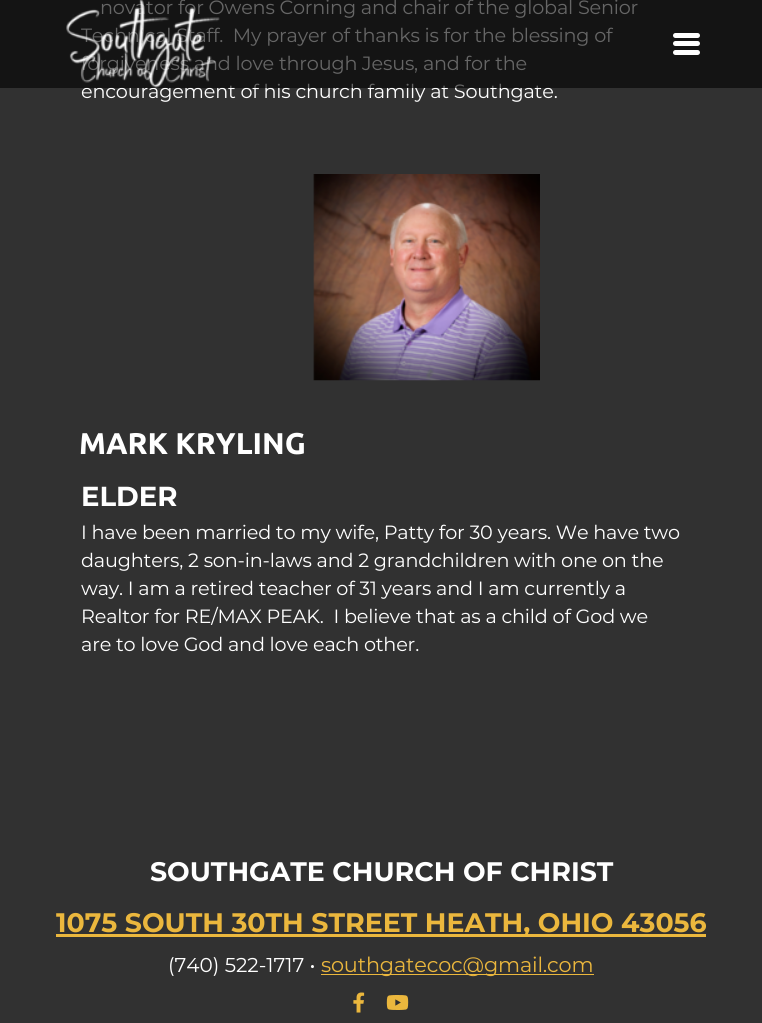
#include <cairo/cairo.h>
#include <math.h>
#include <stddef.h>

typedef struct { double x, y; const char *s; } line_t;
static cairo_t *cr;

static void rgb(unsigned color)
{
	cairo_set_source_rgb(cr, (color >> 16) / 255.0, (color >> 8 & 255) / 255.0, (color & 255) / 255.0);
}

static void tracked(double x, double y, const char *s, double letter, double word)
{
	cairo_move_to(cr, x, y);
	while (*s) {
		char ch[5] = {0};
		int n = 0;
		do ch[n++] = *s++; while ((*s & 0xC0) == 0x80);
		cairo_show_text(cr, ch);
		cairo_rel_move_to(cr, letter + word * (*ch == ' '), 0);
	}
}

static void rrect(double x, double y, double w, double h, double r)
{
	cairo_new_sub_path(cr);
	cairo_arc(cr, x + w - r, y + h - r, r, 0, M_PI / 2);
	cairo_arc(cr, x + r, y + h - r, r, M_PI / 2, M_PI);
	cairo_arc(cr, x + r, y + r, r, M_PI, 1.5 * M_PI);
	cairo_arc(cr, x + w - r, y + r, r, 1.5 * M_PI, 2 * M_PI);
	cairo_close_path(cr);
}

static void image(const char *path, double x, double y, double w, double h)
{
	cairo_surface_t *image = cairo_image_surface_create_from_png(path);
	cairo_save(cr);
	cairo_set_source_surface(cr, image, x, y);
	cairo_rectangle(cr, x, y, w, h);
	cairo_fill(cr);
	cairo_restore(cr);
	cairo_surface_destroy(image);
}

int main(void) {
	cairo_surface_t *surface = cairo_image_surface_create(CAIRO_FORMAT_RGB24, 762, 1023);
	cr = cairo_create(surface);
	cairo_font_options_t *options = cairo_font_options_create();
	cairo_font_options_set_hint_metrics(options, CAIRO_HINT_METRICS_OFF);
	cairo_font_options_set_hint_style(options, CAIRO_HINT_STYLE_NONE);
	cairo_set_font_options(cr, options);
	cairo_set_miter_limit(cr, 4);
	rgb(0x313131);
	cairo_paint(cr);
	image("img/1.png", 313, 174, 227, 207);
	rgb(0xebb73d);
	cairo_rectangle(cr, 56, 934, 650, 3);
	cairo_fill(cr);
	cairo_rectangle(cr, 321, 974, 273, 1);
	cairo_fill(cr);
	image("img/2.png", 353, 992, 12, 21);
	image("img/3.png", 386, 995, 23, 15);
	cairo_select_font_face(cr, "Montserrat", CAIRO_FONT_SLANT_NORMAL, CAIRO_FONT_WEIGHT_NORMAL);
	cairo_set_font_size(cr, 19.2);
	rgb(0xffffff);
	{
		static const line_t items[] = {
			{100, 14, "novator for Owens Corning and chair of the global Senior"},
			{81, 42, "Technical Staff.  My prayer of thanks is for the blessing of"},
			{81, 70, "forgiveness and love through Jesus, and for the"},
			{81, 98, "encouragement of his church family at Southgate."},
		};
		for (size_t i = 0; i < sizeof items / sizeof *items; i++) {
			tracked(items[i].x, items[i].y, items[i].s, -0.17, 0);
		}
	}
	cairo_set_source_rgba(cr, 0, 0, 0, 0.6);
	cairo_rectangle(cr, 0, 0, 762, 88);
	cairo_fill(cr);
	cairo_select_font_face(cr, "Ubuntu", CAIRO_FONT_SLANT_NORMAL, CAIRO_FONT_WEIGHT_BOLD);
	cairo_set_font_size(cr, 30);
	rgb(0xffffff);
	cairo_move_to(cr, 79, 454);
	cairo_show_text(cr, "MARK KRYLING");
	cairo_select_font_face(cr, "Montserrat", CAIRO_FONT_SLANT_NORMAL, CAIRO_FONT_WEIGHT_BOLD);
	cairo_set_font_size(cr, 27.5);
	cairo_move_to(cr, 81, 506);
	cairo_show_text(cr, "ELDER");
	cairo_select_font_face(cr, "Montserrat", CAIRO_FONT_SLANT_NORMAL, CAIRO_FONT_WEIGHT_NORMAL);
	cairo_set_font_size(cr, 19.2);
	{
		static const line_t items[] = {
			{81, 539, "I have been married to my wife, Patty for 30 years. We have two"},
			{81, 567, "daughters, 2 son-in-laws and 2 grandchildren with one on the"},
			{81, 595, "way. I am a retired teacher of 31 years and I am currently a"},
			{81, 623, "Realtor for RE/MAX PEAK.  I believe that as a child of God we"},
			{81, 651, "are to love God and love each other."},
		};
		for (size_t i = 0; i < sizeof items / sizeof *items; i++) {
			tracked(items[i].x, items[i].y, items[i].s, -0.17, 0);
		}
	}
	cairo_select_font_face(cr, "Montserrat", CAIRO_FONT_SLANT_NORMAL, CAIRO_FONT_WEIGHT_BOLD);
	cairo_set_font_size(cr, 26.8);
	cairo_move_to(cr, 150, 881);
	cairo_show_text(cr, "SOUTHGATE CHURCH OF CHRIST");
	rgb(0xebb73d);
	cairo_move_to(cr, 56, 932);
	cairo_show_text(cr, "1075 SOUTH 30TH STREET HEATH, OHIO 43056");
	cairo_select_font_face(cr, "Montserrat", CAIRO_FONT_SLANT_NORMAL, CAIRO_FONT_WEIGHT_NORMAL);
	cairo_set_font_size(cr, 20);
	rgb(0xffffff);
	cairo_move_to(cr, 168, 972);
	cairo_show_text(cr, "(740) 522-1717 •");
	cairo_set_font_size(cr, 20.8);
	rgb(0xebb73d);
	tracked(321, 972, "southgatecoc@gmail.com", -0.17, 0);
	image("img/4.png", 66, 0, 154, 88);
	rgb(0xffffff);
	rrect(673, 33, 27, 5, 2.5);
	cairo_fill(cr);
	rrect(673, 41, 27, 5, 2.5);
	cairo_fill(cr);
	rrect(673, 50, 27, 5, 2.5);
	cairo_fill(cr);
	cairo_surface_write_to_png(surface, "page.png");
	cairo_font_options_destroy(options);
	cairo_destroy(cr);
	cairo_surface_destroy(surface);
	return 0;
}
